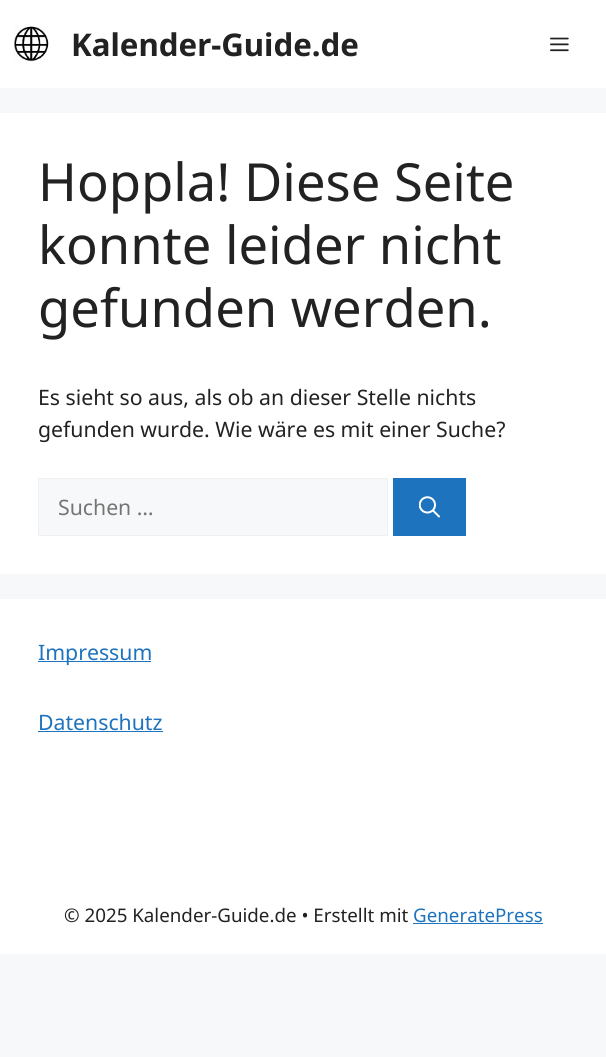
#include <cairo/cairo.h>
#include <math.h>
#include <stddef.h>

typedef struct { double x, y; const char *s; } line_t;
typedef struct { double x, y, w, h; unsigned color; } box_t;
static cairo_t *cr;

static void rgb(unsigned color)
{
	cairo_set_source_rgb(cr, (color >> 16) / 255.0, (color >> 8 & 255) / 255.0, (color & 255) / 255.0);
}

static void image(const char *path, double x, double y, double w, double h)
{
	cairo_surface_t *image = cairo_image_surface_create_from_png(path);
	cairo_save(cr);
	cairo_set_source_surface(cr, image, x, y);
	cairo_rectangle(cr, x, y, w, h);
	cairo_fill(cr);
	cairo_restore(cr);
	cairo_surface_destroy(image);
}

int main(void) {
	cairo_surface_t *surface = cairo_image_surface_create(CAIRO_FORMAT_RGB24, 606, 1057);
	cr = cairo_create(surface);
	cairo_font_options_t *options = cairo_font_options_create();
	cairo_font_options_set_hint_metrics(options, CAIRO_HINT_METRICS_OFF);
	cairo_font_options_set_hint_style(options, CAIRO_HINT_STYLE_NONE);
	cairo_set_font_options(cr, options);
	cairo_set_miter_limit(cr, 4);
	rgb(0xf7f8f9);
	cairo_paint(cr);
	rgb(0xffffff);
	cairo_rectangle(cr, 0, 0, 606, 88);
	cairo_fill(cr);
	image("img/1.png", 14, 26, 35, 36);
	image("img/2.png", 550, 37, 19, 15);
	cairo_rectangle(cr, 0, 113, 606, 461);
	cairo_fill(cr);
	rgb(0xf7f8f9);
	cairo_rectangle(cr, 38.5, 478.5, 349, 57);
	cairo_fill_preserve(cr);
	rgb(0xf0f0f0);
	cairo_set_line_width(cr, 1);
	cairo_stroke(cr);
	rgb(0x1e73be);
	cairo_rectangle(cr, 393, 478, 73, 58);
	cairo_fill(cr);
	image("img/3.png", 419, 496, 21, 22);
	{
		static const box_t items[] = {
			{0, 599, 606, 355, 0xffffff},
			{38, 661, 113, 1, 0x1e73be},
			{38, 731, 125, 1, 0x1e73be},
			{413, 923, 130, 1, 0x1e73be},
		};
		for (size_t i = 0; i < sizeof items / sizeof *items; i++) {
			rgb(items[i].color);
			cairo_rectangle(cr, items[i].x, items[i].y, items[i].w, items[i].h);
			cairo_fill(cr);
		}
	}
	cairo_select_font_face(cr, "Noto Sans", CAIRO_FONT_SLANT_NORMAL, CAIRO_FONT_WEIGHT_BOLD);
	cairo_set_font_size(cr, 31.25);
	rgb(0x222222);
	cairo_move_to(cr, 71, 56);
	cairo_show_text(cr, "Kalender-Guide.de");
	cairo_select_font_face(cr, "Noto Sans", CAIRO_FONT_SLANT_NORMAL, CAIRO_FONT_WEIGHT_NORMAL);
	cairo_set_font_size(cr, 52.5);
	{
		static const line_t items[] = {
			{38, 201, "Hoppla! Diese Seite"},
			{38, 264, "konnte leider nicht"},
			{38, 327, "gefunden werden."},
		};
		for (size_t i = 0; i < sizeof items / sizeof *items; i++) {
			cairo_move_to(cr, items[i].x, items[i].y);
			cairo_show_text(cr, items[i].s);
		}
	}
	cairo_set_font_size(cr, 21.25);
	cairo_move_to(cr, 38, 405);
	cairo_show_text(cr, "Es sieht so aus, als ob an dieser Stelle nichts");
	cairo_move_to(cr, 38, 437);
	cairo_show_text(cr, "gefunden wurde. Wie wäre es mit einer Suche?");
	rgb(0x757575);
	cairo_move_to(cr, 58, 515);
	cairo_show_text(cr, "Suchen …");
	rgb(0x1e73be);
	cairo_move_to(cr, 38, 660);
	cairo_show_text(cr, "Impressum");
	cairo_move_to(cr, 38, 730);
	cairo_show_text(cr, "Datenschutz");
	cairo_set_font_size(cr, 18.75);
	rgb(0x222222);
	cairo_move_to(cr, 64, 922);
	cairo_show_text(cr, "© 2025 Kalender-Guide.de • Erstellt mit");
	rgb(0x1e73be);
	cairo_move_to(cr, 413, 922);
	cairo_show_text(cr, "GeneratePress");
	cairo_surface_write_to_png(surface, "page.png");
	cairo_font_options_destroy(options);
	cairo_destroy(cr);
	cairo_surface_destroy(surface);
	return 0;
}
